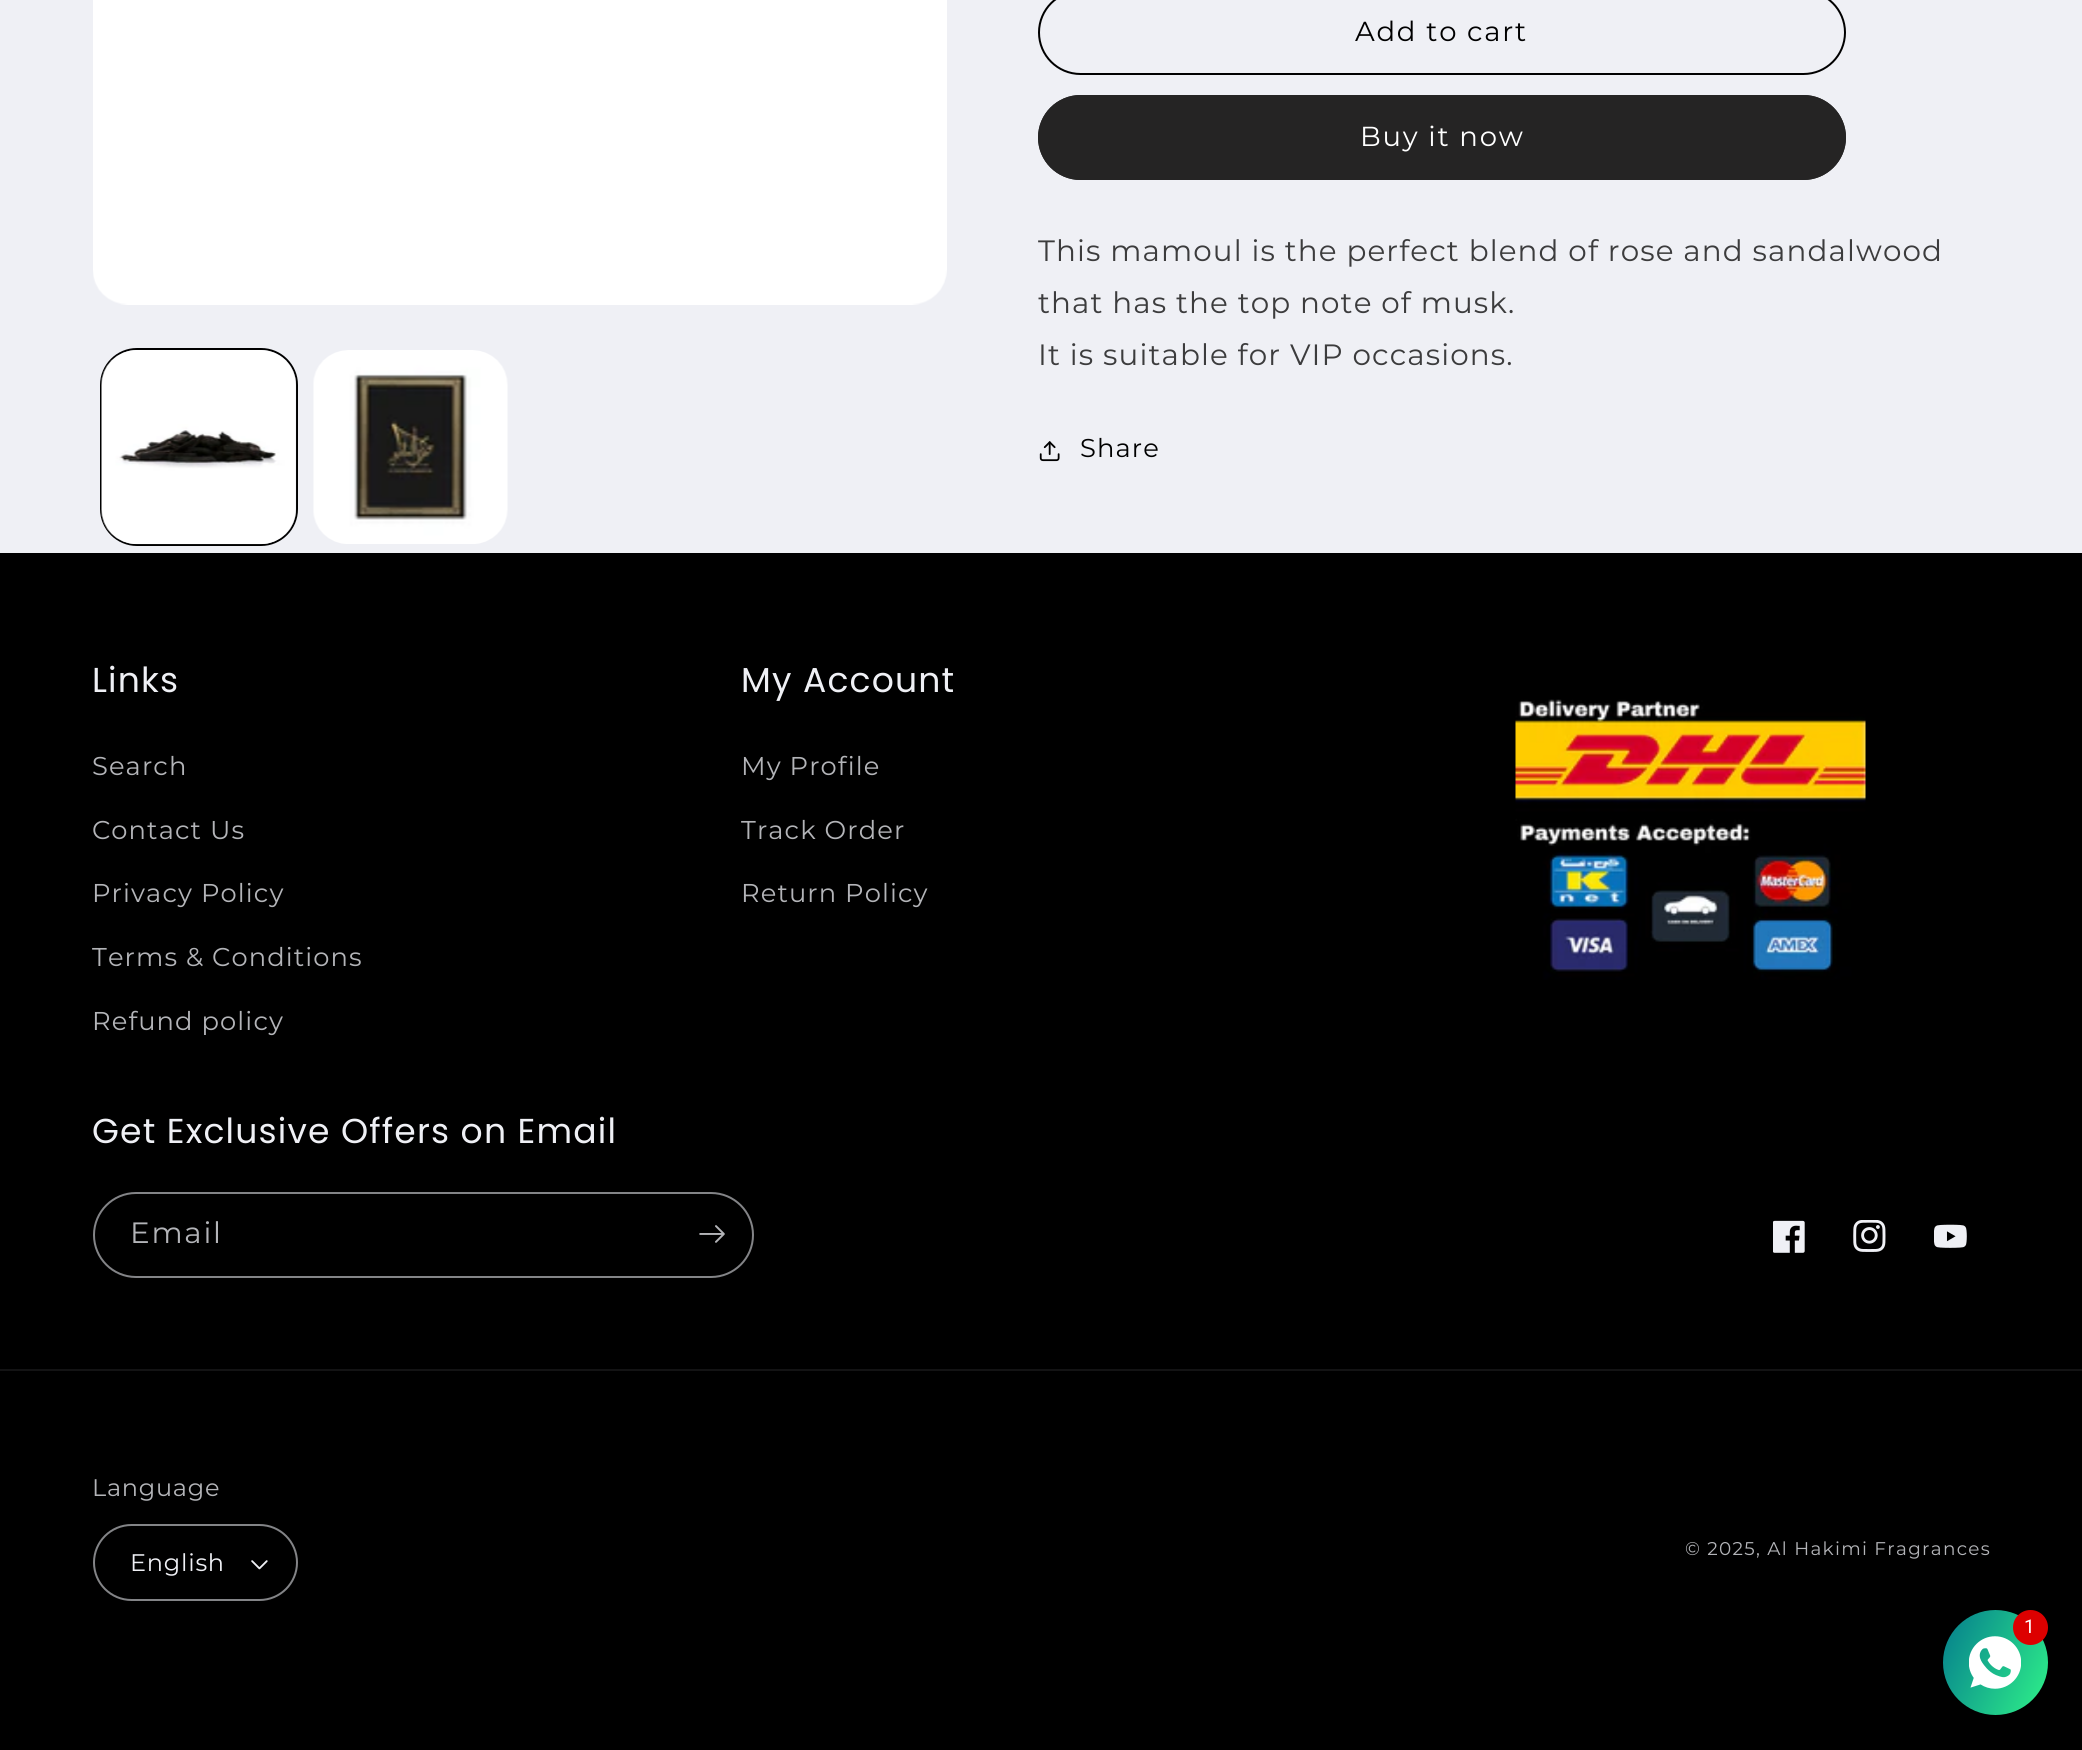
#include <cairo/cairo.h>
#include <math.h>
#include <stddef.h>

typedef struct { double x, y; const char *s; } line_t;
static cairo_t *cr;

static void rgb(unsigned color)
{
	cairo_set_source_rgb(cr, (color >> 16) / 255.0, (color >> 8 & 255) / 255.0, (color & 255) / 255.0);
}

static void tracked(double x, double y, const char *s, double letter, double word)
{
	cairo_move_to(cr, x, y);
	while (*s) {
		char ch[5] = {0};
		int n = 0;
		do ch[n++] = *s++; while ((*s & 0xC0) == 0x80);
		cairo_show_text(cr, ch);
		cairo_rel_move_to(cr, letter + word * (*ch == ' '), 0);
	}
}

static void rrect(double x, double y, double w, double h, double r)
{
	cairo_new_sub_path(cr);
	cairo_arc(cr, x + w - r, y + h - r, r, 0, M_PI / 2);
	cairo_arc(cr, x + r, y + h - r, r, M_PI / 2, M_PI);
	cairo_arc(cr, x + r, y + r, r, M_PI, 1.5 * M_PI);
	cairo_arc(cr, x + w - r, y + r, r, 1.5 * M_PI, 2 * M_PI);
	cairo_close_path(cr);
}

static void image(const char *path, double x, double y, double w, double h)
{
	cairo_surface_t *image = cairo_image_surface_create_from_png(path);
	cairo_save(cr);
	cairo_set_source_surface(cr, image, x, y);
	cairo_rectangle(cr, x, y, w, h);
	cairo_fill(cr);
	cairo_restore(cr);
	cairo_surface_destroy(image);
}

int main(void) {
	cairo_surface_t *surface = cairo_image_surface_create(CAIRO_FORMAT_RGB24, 2082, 1750);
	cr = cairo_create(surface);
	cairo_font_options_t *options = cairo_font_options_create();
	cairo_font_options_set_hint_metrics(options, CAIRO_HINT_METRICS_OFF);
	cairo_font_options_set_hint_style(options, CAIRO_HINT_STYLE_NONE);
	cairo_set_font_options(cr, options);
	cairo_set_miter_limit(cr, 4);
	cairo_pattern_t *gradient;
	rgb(0xeff0f5);
	cairo_paint(cr);
	image("img/1.png", 93, 0, 854, 305);
	rrect(101, 349, 196, 196, 36);
	rgb(0x000000);
	cairo_stroke(cr);
	image("img/2.png", 101, 350, 196, 195);
	image("img/3.png", 313, 350, 195, 194);
	rrect(1039, -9, 806, 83, 41.5);
	cairo_stroke(cr);
	rgb(0x252424);
	rrect(1038, 95, 808, 85, 42.5);
	cairo_fill(cr);
	rrect(1039, 96, 806, 83, 41.5);
	cairo_stroke(cr);
	image("img/4.png", 1039, 441, 21, 21);
	rgb(0x000000);
	cairo_rectangle(cr, 0, 553, 2082, 1197);
	cairo_fill(cr);
	image("img/5.png", 1515, 699, 351, 281);
	rrect(94, 1193, 659, 84, 42);
	rgb(0x838487);
	cairo_stroke(cr);
	image("img/6.png", 699, 1225, 26, 18);
	image("img/7.png", 1773, 1220, 32, 33);
	image("img/8.png", 1853, 1220, 33, 32);
	image("img/9.png", 1934, 1224, 33, 24);
	rgb(0x131314);
	cairo_rectangle(cr, 0, 1369, 2082, 2);
	cairo_fill(cr);
	image("img/10.png", 251, 1560, 17, 10);
	rrect(94, 1525, 203, 75, 37.5);
	rgb(0x838487);
	cairo_stroke(cr);
	gradient = cairo_pattern_create_linear(1932, 1633, 2058, 1692);
	cairo_pattern_add_color_stop_rgba(gradient, 0, 0.016, 0.486, 0.553, 1);
	cairo_pattern_add_color_stop_rgba(gradient, 1, 0.184, 0.949, 0.537, 1);
	cairo_set_source(cr, gradient);
	cairo_pattern_destroy(gradient);
	cairo_arc(cr, 1995.5, 1662.5, 52.5, 0, 2 * M_PI);
	cairo_fill(cr);
	image("img/11.png", 1969, 1636, 52, 53);
	rgb(0xdd0000);
	cairo_arc(cr, 2030.5, 1627.5, 17.5, 0, 2 * M_PI);
	cairo_fill(cr);
	cairo_select_font_face(cr, "Montserrat", CAIRO_FONT_SLANT_NORMAL, CAIRO_FONT_WEIGHT_NORMAL);
	cairo_set_font_size(cr, 27.5);
	rgb(0x000000);
	tracked(1355, 41, "Add to cart", 1.75, 0);
	rgb(0xffffff);
	tracked(1360, 146, "Buy it now", 1.75, 0);
	cairo_set_font_size(cr, 29.4);
	rgb(0x3c3c3d);
	{
		static const line_t items[] = {
			{1038, 261, "This mamoul is the perfect blend of rose and sandalwood"},
			{1038, 313, "that has the top note of musk."},
			{1038, 365, "It is suitable for VIP occasions."},
		};
		for (size_t i = 0; i < sizeof items / sizeof *items; i++) {
			tracked(items[i].x, items[i].y, items[i].s, 1.1, 0);
		}
	}
	cairo_set_font_size(cr, 25.75);
	rgb(0x000000);
	tracked(1080, 457, "Share", 1.1, 0);
	cairo_select_font_face(cr, "Poppins", CAIRO_FONT_SLANT_NORMAL, CAIRO_FONT_WEIGHT_NORMAL);
	cairo_set_font_size(cr, 34.6);
	rgb(0xeff0f5);
	tracked(92, 692, "Links", 1.15, 0);
	cairo_select_font_face(cr, "Montserrat", CAIRO_FONT_SLANT_NORMAL, CAIRO_FONT_WEIGHT_NORMAL);
	cairo_set_font_size(cr, 25.75);
	rgb(0xb3b4b8);
	{
		static const line_t items[] = {
			{92, 775, "Search"},
			{92, 839, "Contact Us"},
			{92, 902, "Privacy Policy"},
			{92, 966, "Terms & Conditions"},
			{92, 1030, "Refund policy"},
		};
		for (size_t i = 0; i < sizeof items / sizeof *items; i++) {
			tracked(items[i].x, items[i].y, items[i].s, 1.1, 0);
		}
	}
	cairo_select_font_face(cr, "Poppins", CAIRO_FONT_SLANT_NORMAL, CAIRO_FONT_WEIGHT_NORMAL);
	cairo_set_font_size(cr, 34.6);
	rgb(0xeff0f5);
	tracked(741, 692, "My Account", 1.15, 0);
	cairo_select_font_face(cr, "Montserrat", CAIRO_FONT_SLANT_NORMAL, CAIRO_FONT_WEIGHT_NORMAL);
	cairo_set_font_size(cr, 25.75);
	rgb(0xb3b4b8);
	{
		static const line_t items[] = {
			{741, 775, "My Profile"},
			{741, 839, "Track Order"},
			{741, 902, "Return Policy"},
		};
		for (size_t i = 0; i < sizeof items / sizeof *items; i++) {
			tracked(items[i].x, items[i].y, items[i].s, 1.1, 0);
		}
	}
	cairo_select_font_face(cr, "Poppins", CAIRO_FONT_SLANT_NORMAL, CAIRO_FONT_WEIGHT_NORMAL);
	cairo_set_font_size(cr, 34.6);
	rgb(0xeff0f5);
	tracked(92, 1143, "Get Exclusive Offers on Email", 1.15, 0);
	cairo_select_font_face(cr, "Montserrat", CAIRO_FONT_SLANT_NORMAL, CAIRO_FONT_WEIGHT_NORMAL);
	cairo_set_font_size(cr, 29.4);
	rgb(0xb3b4b8);
	tracked(130, 1243, "Email", 1.75, 0);
	cairo_set_font_size(cr, 24);
	tracked(92, 1496, "Language", 0.75, 0);
	rgb(0xeff0f5);
	tracked(130, 1571, "English", 0.75, 0);
	cairo_set_font_size(cr, 18.4);
	rgb(0xb3b4b8);
	tracked(1685, 1555, "© 2025, Al Hakimi Fragrances", 1.3, 0);
	cairo_select_font_face(cr, "Roboto", CAIRO_FONT_SLANT_NORMAL, CAIRO_FONT_WEIGHT_NORMAL);
	cairo_set_font_size(cr, 19);
	rgb(0xffffff);
	tracked(2024, 1633, "1", 1.1, 0);
	cairo_surface_write_to_png(surface, "page.png");
	cairo_font_options_destroy(options);
	cairo_destroy(cr);
	cairo_surface_destroy(surface);
	return 0;
}
